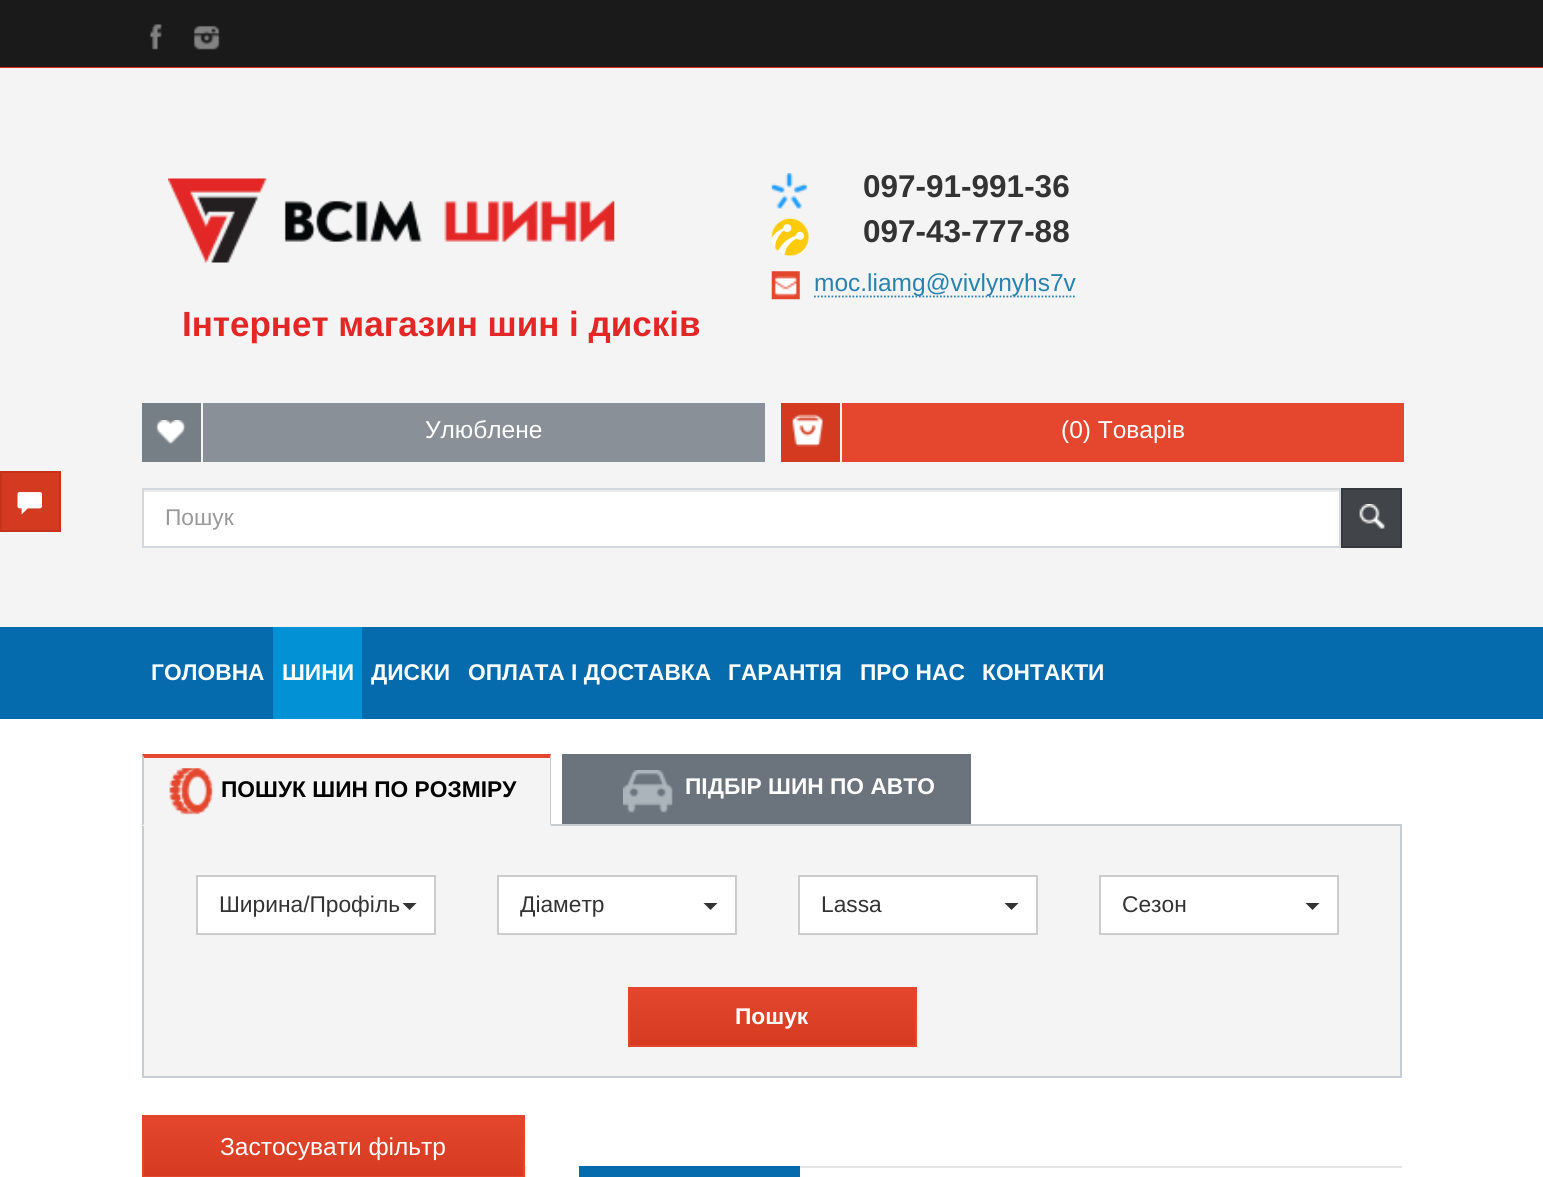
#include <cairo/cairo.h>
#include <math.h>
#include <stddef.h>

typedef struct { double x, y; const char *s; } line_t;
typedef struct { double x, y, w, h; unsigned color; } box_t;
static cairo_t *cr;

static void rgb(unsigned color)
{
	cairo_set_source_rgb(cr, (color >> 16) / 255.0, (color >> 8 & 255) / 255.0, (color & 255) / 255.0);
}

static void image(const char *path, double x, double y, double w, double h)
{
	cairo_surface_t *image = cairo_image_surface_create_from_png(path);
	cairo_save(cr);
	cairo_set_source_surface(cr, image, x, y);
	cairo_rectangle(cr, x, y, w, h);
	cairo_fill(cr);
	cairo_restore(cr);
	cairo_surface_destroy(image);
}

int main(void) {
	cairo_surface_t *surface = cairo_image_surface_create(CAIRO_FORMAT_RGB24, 1543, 1177);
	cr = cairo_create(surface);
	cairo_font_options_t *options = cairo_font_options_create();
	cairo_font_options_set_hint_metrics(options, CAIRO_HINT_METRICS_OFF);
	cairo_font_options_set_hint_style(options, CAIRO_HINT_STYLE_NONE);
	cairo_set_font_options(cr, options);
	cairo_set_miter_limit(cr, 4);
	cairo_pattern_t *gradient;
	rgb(0xffffff);
	cairo_paint(cr);
	rgb(0xf4f4f4);
	cairo_rectangle(cr, 0, 68, 1543, 559);
	cairo_fill(cr);
	rgb(0xd33a20);
	cairo_rectangle(cr, 1, 472, 59, 59);
	cairo_fill_preserve(cr);
	rgb(0xc4331a);
	cairo_stroke(cr);
	image("img/1.png", 17, 492, 25, 23);
	rgb(0x1a1a1a);
	cairo_rectangle(cr, 0, 0, 1543, 67);
	cairo_fill(cr);
	rgb(0xe1261d);
	cairo_rectangle(cr, 0, 67, 1543, 1);
	cairo_fill(cr);
	image("img/2.png", 150, 24, 12, 26);
	image("img/3.png", 193, 25, 27, 25);
	image("img/4.png", 771, 173, 37, 36);
	image("img/5.png", 771, 218, 38, 38);
	image("img/6.png", 771, 271, 29, 29);
	cairo_new_path(cr);
	cairo_move_to(cr, 814, 296.5);
	cairo_line_to(cr, 1076, 296.5);
	rgb(0x2782ae);
	cairo_set_line_width(cr, 1.8);
	cairo_set_dash(cr, (double[]){1.75, 1.75}, 2, 0);
	cairo_stroke(cr);
	image("img/7.png", 168, 178, 447, 85);
	rgb(0x767f86);
	cairo_rectangle(cr, 142, 403, 59, 59);
	cairo_fill(cr);
	image("img/8.png", 155, 420, 31, 25);
	rgb(0x899098);
	cairo_rectangle(cr, 203, 403, 562, 59);
	cairo_fill(cr);
	rgb(0xd33a20);
	cairo_rectangle(cr, 781, 403, 59, 59);
	cairo_fill(cr);
	image("img/9.png", 792, 414, 31, 33);
	{
		static const box_t items[] = {
			{842, 403, 562, 59, 0xe4472d},
			{144, 492, 1195, 54, 0xffffff},
			{144, 490, 1195, 2, 0xececec},
		};
		for (size_t i = 0; i < sizeof items / sizeof *items; i++) {
			rgb(items[i].color);
			cairo_rectangle(cr, items[i].x, items[i].y, items[i].w, items[i].h);
			cairo_fill(cr);
		}
	}
	cairo_rectangle(cr, 143, 489, 1197, 58);
	rgb(0xd3d9df);
	cairo_set_line_width(cr, 2);
	cairo_set_dash(cr, NULL, 0, 0);
	cairo_stroke(cr);
	rgb(0x414448);
	cairo_rectangle(cr, 1342, 489, 59, 58);
	cairo_fill_preserve(cr);
	rgb(0x35383c);
	cairo_stroke(cr);
	image("img/10.png", 1359, 504, 26, 25);
	rgb(0x056bad);
	cairo_rectangle(cr, 0, 627, 1543, 92);
	cairo_fill(cr);
	rgb(0x0291d5);
	cairo_rectangle(cr, 273, 627, 89, 92);
	cairo_fill(cr);
	rgb(0xf4f4f4);
	cairo_rectangle(cr, 143, 825, 1258, 252);
	cairo_fill_preserve(cr);
	rgb(0xc6ccd2);
	cairo_stroke(cr);
	rgb(0xf4f4f4);
	cairo_rectangle(cr, 142, 754, 409, 72);
	cairo_fill(cr);
	rgb(0xe4472d);
	cairo_new_path(cr);
	cairo_move_to(cr, 142, 754);
	cairo_line_to(cr, 551, 754);
	cairo_line_to(cr, 550, 758);
	cairo_line_to(cr, 144, 758);
	cairo_close_path(cr);
	cairo_fill(cr);
	rgb(0xc6ccd2);
	cairo_new_path(cr);
	cairo_move_to(cr, 551, 754);
	cairo_line_to(cr, 551, 826);
	cairo_line_to(cr, 550, 824);
	cairo_line_to(cr, 550, 758);
	cairo_close_path(cr);
	cairo_fill(cr);
	cairo_new_path(cr);
	cairo_move_to(cr, 142, 826);
	cairo_line_to(cr, 142, 754);
	cairo_line_to(cr, 144, 758);
	cairo_line_to(cr, 144, 824);
	cairo_close_path(cr);
	cairo_fill(cr);
	image("img/11.png", 169, 768, 45, 47);
	rgb(0x6b747d);
	cairo_rectangle(cr, 562, 754, 409, 70);
	cairo_fill(cr);
	image("img/12.png", 623, 770, 50, 43);
	rgb(0xffffff);
	cairo_rectangle(cr, 197, 876, 238, 58);
	cairo_fill_preserve(cr);
	rgb(0xcccccc);
	cairo_stroke(cr);
	rgb(0x333333);
	cairo_new_path(cr);
	cairo_move_to(cr, 402.5, 903);
	cairo_line_to(cr, 416.5, 903);
	cairo_line_to(cr, 409.5, 910);
	cairo_close_path(cr);
	cairo_fill(cr);
	rgb(0xffffff);
	cairo_rectangle(cr, 498, 876, 238, 58);
	cairo_fill_preserve(cr);
	rgb(0xcccccc);
	cairo_stroke(cr);
	rgb(0x333333);
	cairo_new_path(cr);
	cairo_move_to(cr, 703.5, 903);
	cairo_line_to(cr, 717.5, 903);
	cairo_line_to(cr, 710.5, 910);
	cairo_close_path(cr);
	cairo_fill(cr);
	rgb(0xffffff);
	cairo_rectangle(cr, 799, 876, 238, 58);
	cairo_fill_preserve(cr);
	rgb(0xcccccc);
	cairo_stroke(cr);
	rgb(0x333333);
	cairo_new_path(cr);
	cairo_move_to(cr, 1004.5, 903);
	cairo_line_to(cr, 1018.5, 903);
	cairo_line_to(cr, 1011.5, 910);
	cairo_close_path(cr);
	cairo_fill(cr);
	rgb(0xffffff);
	cairo_rectangle(cr, 1100, 876, 238, 58);
	cairo_fill_preserve(cr);
	rgb(0xcccccc);
	cairo_stroke(cr);
	rgb(0x333333);
	cairo_new_path(cr);
	cairo_move_to(cr, 1305.5, 903);
	cairo_line_to(cr, 1319.5, 903);
	cairo_line_to(cr, 1312.5, 910);
	cairo_close_path(cr);
	cairo_fill(cr);
	gradient = cairo_pattern_create_linear(773, 989, 773, 1045);
	cairo_pattern_add_color_stop_rgba(gradient, 0, 0.89, 0.275, 0.173, 1);
	cairo_pattern_add_color_stop_rgba(gradient, 1, 0.839, 0.231, 0.129, 1);
	cairo_set_source(cr, gradient);
	cairo_pattern_destroy(gradient);
	cairo_rectangle(cr, 630, 989, 285, 56);
	cairo_fill(cr);
	cairo_rectangle(cr, 629, 988, 287, 58);
	rgb(0xe3462c);
	cairo_stroke(cr);
	gradient = cairo_pattern_create_linear(333, 1117, 333, 1176);
	cairo_pattern_add_color_stop_rgba(gradient, 0, 0.89, 0.275, 0.173, 1);
	cairo_pattern_add_color_stop_rgba(gradient, 1, 0.839, 0.231, 0.129, 1);
	cairo_set_source(cr, gradient);
	cairo_pattern_destroy(gradient);
	cairo_rectangle(cr, 144, 1117, 379, 59);
	cairo_fill(cr);
	cairo_rectangle(cr, 143, 1116, 381, 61);
	rgb(0xe3462c);
	cairo_stroke(cr);
	{
		static const box_t items[] = {
			{525, 1166, 2, 11, 0xf4f4f4},
			{579, 1166, 221, 11, 0x056bad},
			{800, 1166, 602, 2, 0xe4e4e4},
		};
		for (size_t i = 0; i < sizeof items / sizeof *items; i++) {
			rgb(items[i].color);
			cairo_rectangle(cr, items[i].x, items[i].y, items[i].w, items[i].h);
			cairo_fill(cr);
		}
	}
	cairo_select_font_face(cr, "Liberation Sans", CAIRO_FONT_SLANT_NORMAL, CAIRO_FONT_WEIGHT_BOLD);
	cairo_set_font_size(cr, 31.5);
	rgb(0x333333);
	cairo_move_to(cr, 863, 197);
	cairo_show_text(cr, "097-91-991-36");
	cairo_move_to(cr, 863, 242);
	cairo_show_text(cr, "097-43-777-88");
	cairo_select_font_face(cr, "Liberation Sans", CAIRO_FONT_SLANT_NORMAL, CAIRO_FONT_WEIGHT_NORMAL);
	cairo_set_font_size(cr, 24.5);
	rgb(0x2782ae);
	cairo_move_to(cr, 814, 291);
	cairo_show_text(cr, "moc.liamg@vivlynyhs7v");
	cairo_select_font_face(cr, "Liberation Sans", CAIRO_FONT_SLANT_NORMAL, CAIRO_FONT_WEIGHT_BOLD);
	cairo_set_font_size(cr, 35);
	rgb(0xe32726);
	cairo_move_to(cr, 182, 336);
	cairo_show_text(cr, "Інтернет магазин шин і дисків");
	cairo_select_font_face(cr, "Liberation Sans", CAIRO_FONT_SLANT_NORMAL, CAIRO_FONT_WEIGHT_NORMAL);
	cairo_set_font_size(cr, 24.5);
	rgb(0xffffff);
	cairo_move_to(cr, 425, 438);
	cairo_show_text(cr, "Улюблене");
	cairo_move_to(cr, 1061, 438);
	cairo_show_text(cr, "(0) Товарів");
	cairo_set_font_size(cr, 22.75);
	rgb(0x999999);
	cairo_move_to(cr, 165, 525);
	cairo_show_text(cr, "Пошук");
	cairo_select_font_face(cr, "Liberation Sans", CAIRO_FONT_SLANT_NORMAL, CAIRO_FONT_WEIGHT_BOLD);
	rgb(0xffffff);
	{
		static const line_t items[] = {
			{151, 680, "ГОЛОВНА"},
			{282, 680, "ШИНИ"},
			{371, 680, "ДИСКИ"},
			{468, 680, "ОПЛАТА І ДОСТАВКА"},
			{728, 680, "ГАРАНТІЯ"},
			{860, 680, "ПРО НАС"},
			{982, 680, "КОНТАКТИ"},
		};
		for (size_t i = 0; i < sizeof items / sizeof *items; i++) {
			cairo_move_to(cr, items[i].x, items[i].y);
			cairo_show_text(cr, items[i].s);
		}
	}
	rgb(0x000000);
	cairo_move_to(cr, 221, 797);
	cairo_show_text(cr, "ПОШУК ШИН ПО РОЗМІРУ");
	rgb(0xffffff);
	cairo_move_to(cr, 685, 794);
	cairo_show_text(cr, "ПІДБІР ШИН ПО АВТО");
	cairo_select_font_face(cr, "Liberation Sans", CAIRO_FONT_SLANT_NORMAL, CAIRO_FONT_WEIGHT_NORMAL);
	rgb(0x333333);
	{
		static const line_t items[] = {
			{219, 912, "Ширина/Профіль"},
			{520, 912, "Діаметр"},
			{821, 912, "Lassa"},
			{1122, 912, "Сезон"},
		};
		for (size_t i = 0; i < sizeof items / sizeof *items; i++) {
			cairo_move_to(cr, items[i].x, items[i].y);
			cairo_show_text(cr, items[i].s);
		}
	}
	cairo_select_font_face(cr, "Liberation Sans", CAIRO_FONT_SLANT_NORMAL, CAIRO_FONT_WEIGHT_BOLD);
	rgb(0xffffff);
	cairo_move_to(cr, 735, 1024);
	cairo_show_text(cr, "Пошук");
	cairo_select_font_face(cr, "Liberation Sans", CAIRO_FONT_SLANT_NORMAL, CAIRO_FONT_WEIGHT_NORMAL);
	cairo_set_font_size(cr, 24.5);
	cairo_move_to(cr, 220, 1155);
	cairo_show_text(cr, "Застосувати фільтр");
	cairo_surface_write_to_png(surface, "page.png");
	cairo_font_options_destroy(options);
	cairo_destroy(cr);
	cairo_surface_destroy(surface);
	return 0;
}
